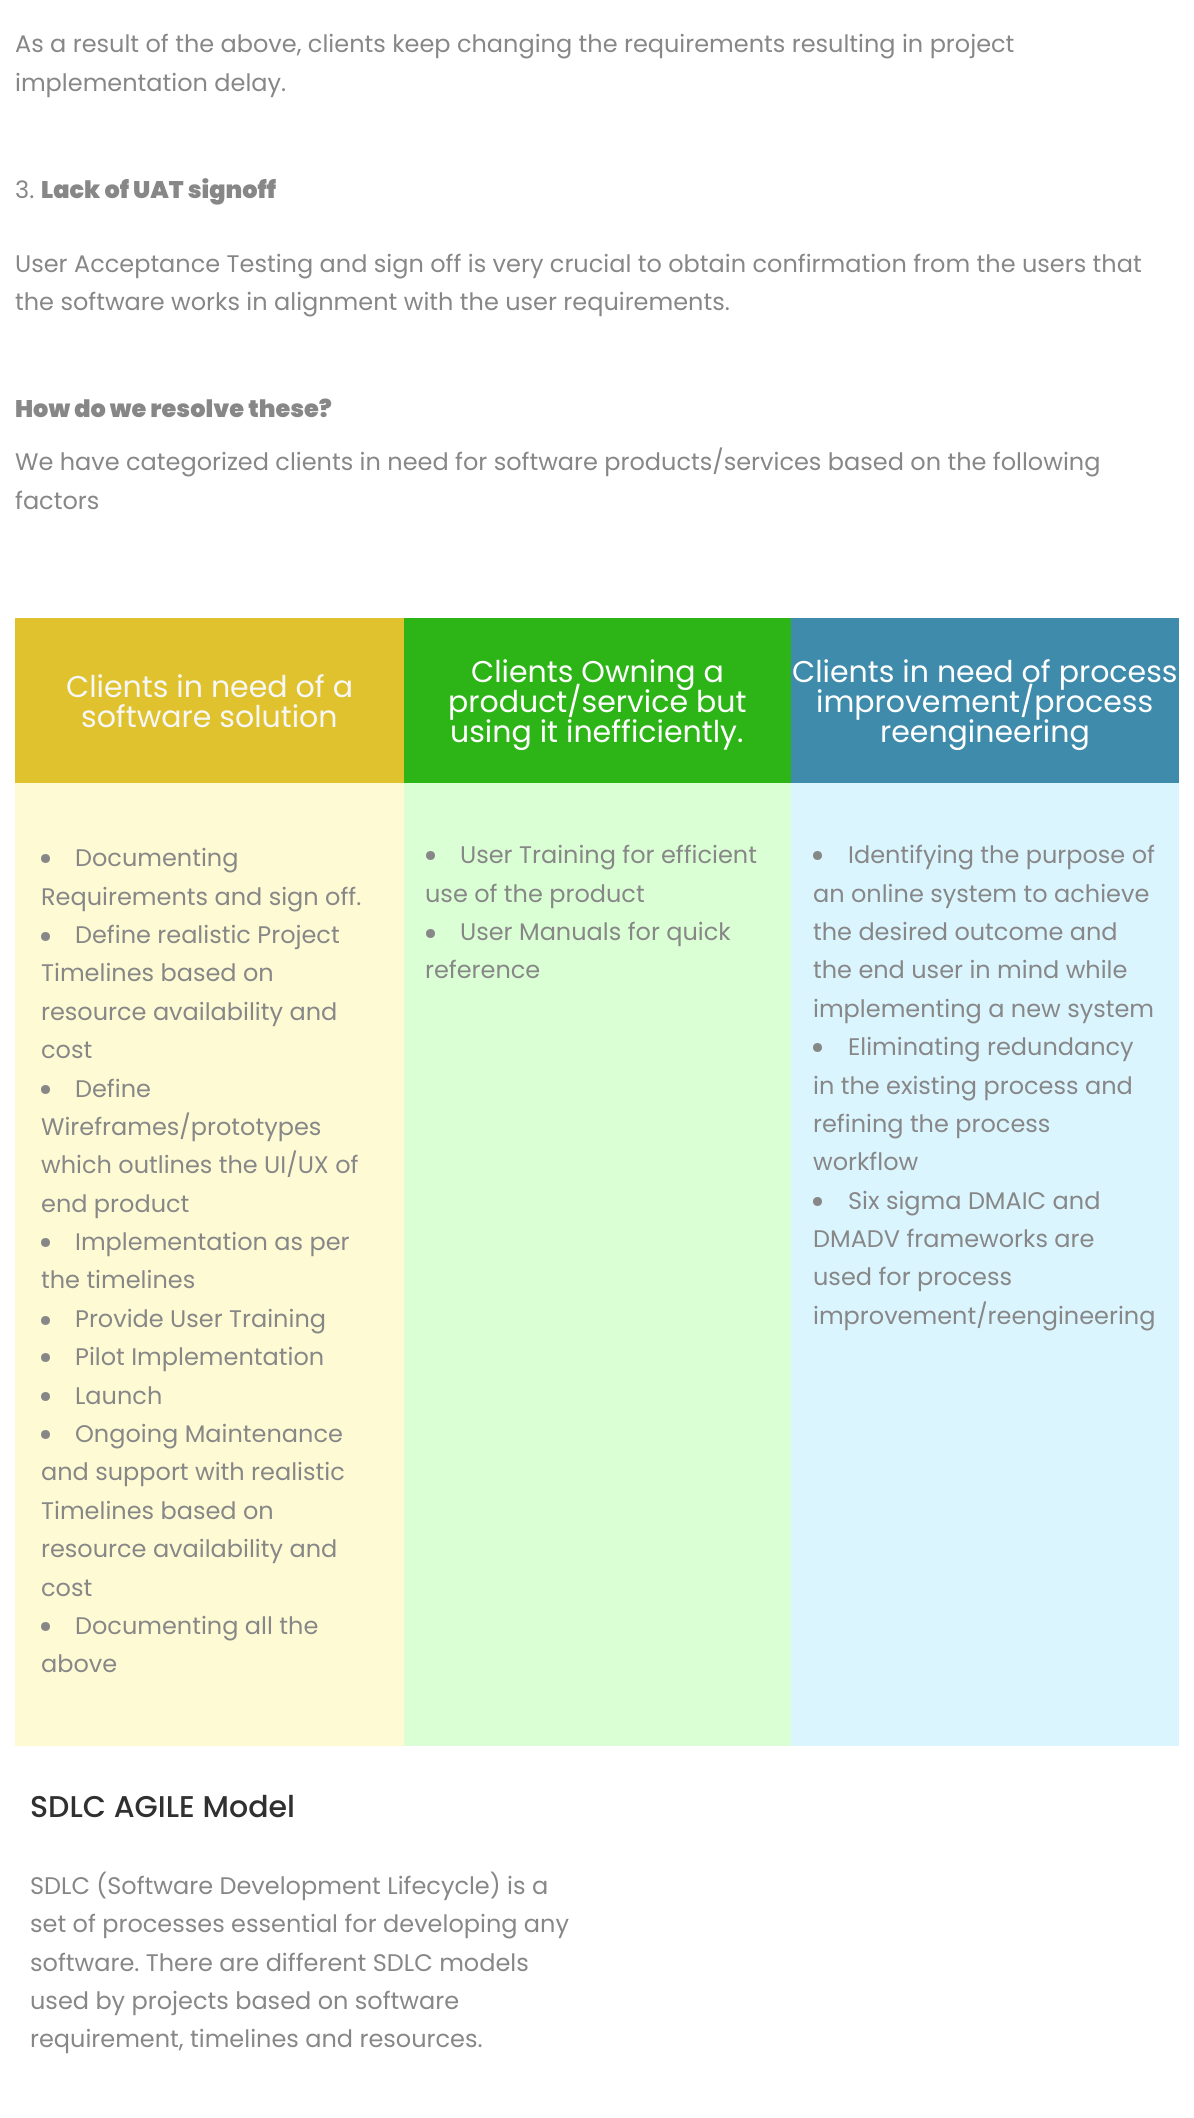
#include <cairo/cairo.h>
#include <math.h>
#include <stddef.h>

typedef struct { double x, y; const char *s; } line_t;
static cairo_t *cr;

static void rgb(unsigned color)
{
	cairo_set_source_rgb(cr, (color >> 16) / 255.0, (color >> 8 & 255) / 255.0, (color & 255) / 255.0);
}

int main(void) {
	cairo_surface_t *surface = cairo_image_surface_create(CAIRO_FORMAT_RGB24, 1194, 2118);
	cr = cairo_create(surface);
	cairo_font_options_t *options = cairo_font_options_create();
	cairo_font_options_set_hint_metrics(options, CAIRO_HINT_METRICS_OFF);
	cairo_font_options_set_hint_style(options, CAIRO_HINT_STYLE_NONE);
	cairo_set_font_options(cr, options);
	cairo_set_miter_limit(cr, 4);
	rgb(0xffffff);
	cairo_paint(cr);
	rgb(0xfefbd4);
	cairo_rectangle(cr, 15, 783, 389, 963);
	cairo_fill(cr);
	rgb(0xdfc22d);
	cairo_rectangle(cr, 15, 618, 389, 165);
	cairo_fill(cr);
	rgb(0x878787);
	cairo_arc(cr, 45.5, 858.5, 4.5, 0, 2 * M_PI);
	cairo_fill(cr);
	cairo_arc(cr, 45.5, 936.5, 4.5, 0, 2 * M_PI);
	cairo_fill(cr);
	cairo_arc(cr, 45.5, 1089.5, 4.5, 0, 2 * M_PI);
	cairo_fill(cr);
	cairo_arc(cr, 45.5, 1242.5, 4.5, 0, 2 * M_PI);
	cairo_fill(cr);
	cairo_arc(cr, 45.5, 1320.5, 4.5, 0, 2 * M_PI);
	cairo_fill(cr);
	cairo_arc(cr, 45.5, 1357.5, 4.5, 0, 2 * M_PI);
	cairo_fill(cr);
	cairo_arc(cr, 45.5, 1396.5, 4.5, 0, 2 * M_PI);
	cairo_fill(cr);
	cairo_arc(cr, 45.5, 1434.5, 4.5, 0, 2 * M_PI);
	cairo_fill(cr);
	cairo_arc(cr, 45.5, 1626.5, 4.5, 0, 2 * M_PI);
	cairo_fill(cr);
	rgb(0xdbffd5);
	cairo_rectangle(cr, 404, 783, 387, 963);
	cairo_fill(cr);
	rgb(0x2db417);
	cairo_rectangle(cr, 404, 618, 387, 165);
	cairo_fill(cr);
	rgb(0x878787);
	cairo_arc(cr, 430.5, 855.5, 4.5, 0, 2 * M_PI);
	cairo_fill(cr);
	cairo_arc(cr, 430.5, 933.5, 4.5, 0, 2 * M_PI);
	cairo_fill(cr);
	rgb(0xdbf5ff);
	cairo_rectangle(cr, 791, 783, 388, 963);
	cairo_fill(cr);
	rgb(0x3e8bab);
	cairo_rectangle(cr, 791, 618, 388, 165);
	cairo_fill(cr);
	rgb(0x878787);
	cairo_arc(cr, 817.5, 855.5, 4.5, 0, 2 * M_PI);
	cairo_fill(cr);
	cairo_arc(cr, 817.5, 1047.5, 4.5, 0, 2 * M_PI);
	cairo_fill(cr);
	cairo_arc(cr, 817.5, 1201.5, 4.5, 0, 2 * M_PI);
	cairo_fill(cr);
	cairo_select_font_face(cr, "Poppins", CAIRO_FONT_SLANT_NORMAL, CAIRO_FONT_WEIGHT_NORMAL);
	cairo_set_font_size(cr, 24);
	{
		static const line_t items[] = {
			{15, 52, "As a result of the above, clients keep changing the requirements resulting in project"},
			{15, 91, "implementation delay."},
			{15, 198, "3."},
		};
		for (size_t i = 0; i < sizeof items / sizeof *items; i++) {
			cairo_move_to(cr, items[i].x, items[i].y);
			cairo_show_text(cr, items[i].s);
		}
	}
	cairo_select_font_face(cr, "Poppins Black", CAIRO_FONT_SLANT_NORMAL, CAIRO_FONT_WEIGHT_NORMAL);
	cairo_move_to(cr, 41, 198);
	cairo_show_text(cr, "Lack of UAT signoff");
	cairo_select_font_face(cr, "Poppins", CAIRO_FONT_SLANT_NORMAL, CAIRO_FONT_WEIGHT_NORMAL);
	cairo_move_to(cr, 15, 272);
	cairo_show_text(cr, "User Acceptance Testing and sign off is very crucial to obtain confirmation from the users that");
	cairo_move_to(cr, 15, 310);
	cairo_show_text(cr, "the software works in alignment with the user requirements.");
	cairo_select_font_face(cr, "Poppins Black", CAIRO_FONT_SLANT_NORMAL, CAIRO_FONT_WEIGHT_NORMAL);
	cairo_move_to(cr, 15, 417);
	cairo_show_text(cr, "How do we resolve these?");
	cairo_select_font_face(cr, "Poppins", CAIRO_FONT_SLANT_NORMAL, CAIRO_FONT_WEIGHT_NORMAL);
	cairo_move_to(cr, 15, 470);
	cairo_show_text(cr, "We have categorized clients in need for software products/services based on the following");
	cairo_move_to(cr, 15, 509);
	cairo_show_text(cr, "factors");
	cairo_set_font_size(cr, 30);
	rgb(0xf7f7f7);
	cairo_move_to(cr, 66, 697);
	cairo_show_text(cr, "Clients in need of a");
	cairo_move_to(cr, 81, 727);
	cairo_show_text(cr, "software solution");
	cairo_set_font_size(cr, 24);
	rgb(0x878787);
	{
		static const line_t items[] = {
			{75, 866, "Documenting"},
			{41, 905, "Requirements and sign off."},
			{75, 943, "Define realistic Project"},
			{41, 981, "Timelines based on"},
			{41, 1020, "resource availability and"},
			{41, 1058, "cost"},
			{75, 1097, "Define"},
			{41, 1135, "Wireframes/prototypes"},
			{41, 1173, "which outlines the UI/UX of"},
			{41, 1212, "end product"},
			{75, 1250, "Implementation as per"},
			{41, 1288, "the timelines"},
			{75, 1327, "Provide User Training"},
			{75, 1365, "Pilot Implementation"},
			{75, 1404, "Launch"},
			{75, 1442, "Ongoing Maintenance"},
			{41, 1480, "and support with realistic"},
			{41, 1519, "Timelines based on"},
			{41, 1557, "resource availability and"},
			{41, 1596, "cost"},
			{75, 1634, "Documenting all the"},
			{41, 1672, "above"},
		};
		for (size_t i = 0; i < sizeof items / sizeof *items; i++) {
			cairo_move_to(cr, items[i].x, items[i].y);
			cairo_show_text(cr, items[i].s);
		}
	}
	cairo_set_font_size(cr, 30);
	rgb(0xffffff);
	{
		static const line_t items[] = {
			{471, 682, "Clients Owning a"},
			{448, 712, "product/service but"},
			{450, 742, "using it inefficiently."},
		};
		for (size_t i = 0; i < sizeof items / sizeof *items; i++) {
			cairo_move_to(cr, items[i].x, items[i].y);
			cairo_show_text(cr, items[i].s);
		}
	}
	cairo_set_font_size(cr, 24);
	rgb(0x878787);
	{
		static const line_t items[] = {
			{460, 863, "User Training for efficient"},
			{425, 902, "use of the product"},
			{460, 940, "User Manuals for quick"},
			{425, 978, "reference"},
		};
		for (size_t i = 0; i < sizeof items / sizeof *items; i++) {
			cairo_move_to(cr, items[i].x, items[i].y);
			cairo_show_text(cr, items[i].s);
		}
	}
	cairo_set_font_size(cr, 30);
	rgb(0xffffff);
	{
		static const line_t items[] = {
			{792, 682, "Clients in need of process"},
			{816, 712, "improvement/process"},
			{880, 742, "reengineering"},
		};
		for (size_t i = 0; i < sizeof items / sizeof *items; i++) {
			cairo_move_to(cr, items[i].x, items[i].y);
			cairo_show_text(cr, items[i].s);
		}
	}
	cairo_set_font_size(cr, 24);
	rgb(0x878787);
	{
		static const line_t items[] = {
			{848, 863, "Identifying the purpose of"},
			{813, 902, "an online system to achieve"},
			{813, 940, "the desired outcome and"},
			{813, 978, "the end user in mind while"},
			{813, 1017, "implementing a new system"},
			{848, 1055, "Eliminating redundancy"},
			{813, 1094, "in the existing process and"},
			{813, 1132, "refining the process"},
			{813, 1170, "workflow"},
			{848, 1209, "Six sigma DMAIC and"},
			{813, 1247, "DMADV frameworks are"},
			{813, 1285, "used for process"},
			{813, 1324, "improvement/reengineering"},
		};
		for (size_t i = 0; i < sizeof items / sizeof *items; i++) {
			cairo_move_to(cr, items[i].x, items[i].y);
			cairo_show_text(cr, items[i].s);
		}
	}
	cairo_select_font_face(cr, "Poppins Medium", CAIRO_FONT_SLANT_NORMAL, CAIRO_FONT_WEIGHT_NORMAL);
	cairo_set_font_size(cr, 30);
	rgb(0x303030);
	cairo_move_to(cr, 30, 1817);
	cairo_show_text(cr, "SDLC AGILE Model");
	cairo_select_font_face(cr, "Poppins", CAIRO_FONT_SLANT_NORMAL, CAIRO_FONT_WEIGHT_NORMAL);
	cairo_set_font_size(cr, 24);
	rgb(0x878787);
	{
		static const line_t items[] = {
			{30, 1894, "SDLC (Software Development Lifecycle) is a"},
			{30, 1932, "set of processes essential for developing any"},
			{30, 1971, "software. There are different SDLC models"},
			{30, 2009, "used by projects based on software"},
			{30, 2047, "requirement, timelines and resources."},
		};
		for (size_t i = 0; i < sizeof items / sizeof *items; i++) {
			cairo_move_to(cr, items[i].x, items[i].y);
			cairo_show_text(cr, items[i].s);
		}
	}
	cairo_surface_write_to_png(surface, "page.png");
	cairo_font_options_destroy(options);
	cairo_destroy(cr);
	cairo_surface_destroy(surface);
	return 0;
}
